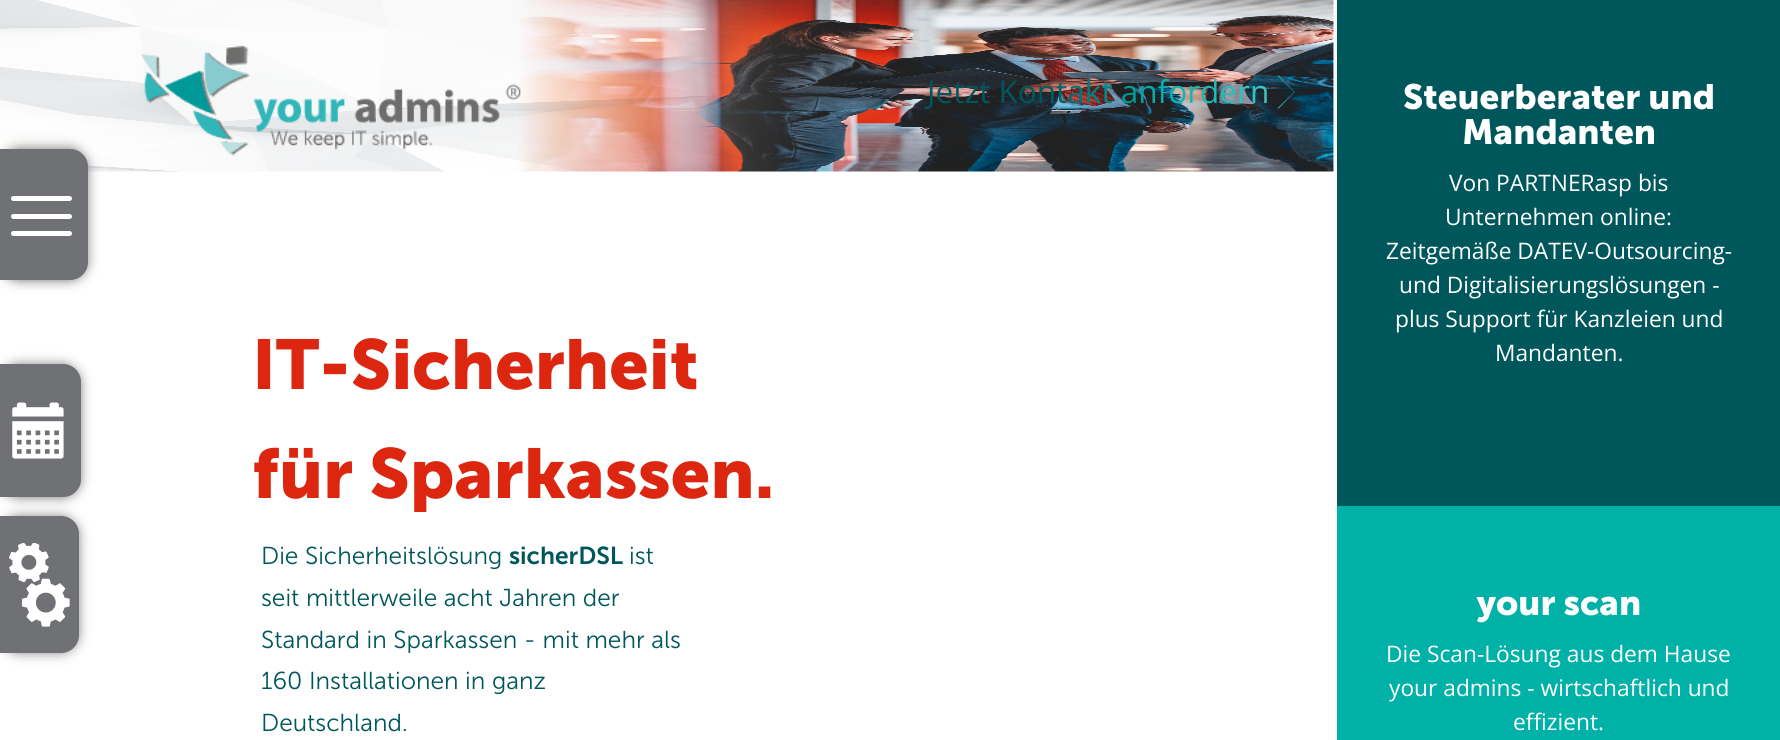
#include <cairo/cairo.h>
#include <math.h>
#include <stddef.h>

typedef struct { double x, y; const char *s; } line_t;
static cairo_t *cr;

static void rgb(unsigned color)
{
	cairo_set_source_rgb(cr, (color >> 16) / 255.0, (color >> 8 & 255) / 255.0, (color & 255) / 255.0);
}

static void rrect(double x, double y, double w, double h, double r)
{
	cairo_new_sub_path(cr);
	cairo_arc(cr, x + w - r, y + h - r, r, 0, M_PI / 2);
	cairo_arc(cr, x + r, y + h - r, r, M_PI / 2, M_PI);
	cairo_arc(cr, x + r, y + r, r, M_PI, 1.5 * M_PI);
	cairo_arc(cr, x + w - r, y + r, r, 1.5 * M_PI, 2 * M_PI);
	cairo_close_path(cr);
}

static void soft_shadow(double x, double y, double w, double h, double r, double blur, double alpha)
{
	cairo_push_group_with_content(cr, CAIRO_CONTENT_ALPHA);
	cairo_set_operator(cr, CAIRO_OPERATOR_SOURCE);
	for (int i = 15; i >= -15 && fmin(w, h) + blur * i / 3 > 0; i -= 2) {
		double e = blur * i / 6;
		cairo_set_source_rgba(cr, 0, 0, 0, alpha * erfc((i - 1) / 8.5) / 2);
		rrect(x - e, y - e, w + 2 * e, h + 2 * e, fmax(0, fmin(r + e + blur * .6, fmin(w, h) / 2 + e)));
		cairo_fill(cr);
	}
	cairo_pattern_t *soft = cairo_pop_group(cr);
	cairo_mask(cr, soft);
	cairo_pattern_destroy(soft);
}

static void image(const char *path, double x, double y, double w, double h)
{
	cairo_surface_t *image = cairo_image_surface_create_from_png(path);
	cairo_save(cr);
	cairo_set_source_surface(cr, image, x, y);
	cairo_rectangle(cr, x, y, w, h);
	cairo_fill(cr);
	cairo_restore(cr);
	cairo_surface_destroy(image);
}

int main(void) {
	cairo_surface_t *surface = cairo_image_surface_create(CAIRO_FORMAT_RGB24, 1780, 740);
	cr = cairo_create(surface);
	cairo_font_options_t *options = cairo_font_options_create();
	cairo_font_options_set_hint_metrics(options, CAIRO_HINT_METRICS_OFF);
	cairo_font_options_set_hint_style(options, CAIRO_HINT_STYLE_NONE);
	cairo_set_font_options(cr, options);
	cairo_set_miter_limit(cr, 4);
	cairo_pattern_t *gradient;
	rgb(0xffffff);
	cairo_paint(cr);
	image("img/3.png", 0, 0, 1337, 172);
	rgb(0x222222);
	soft_shadow(4, 152, 80, 125, 14, 7, 1);
	rgb(0x6f7175);
	cairo_new_path(cr);
	cairo_move_to(cr, 0, 149);
	cairo_line_to(cr, 70, 149);
	cairo_curve_to(cr, 80, 149, 88, 157, 88, 167);
	cairo_line_to(cr, 88, 262);
	cairo_curve_to(cr, 88, 272, 80, 280, 70, 280);
	cairo_line_to(cr, 0, 280);
	cairo_close_path(cr);
	cairo_fill(cr);
	rgb(0xffffff);
	rrect(11, 196, 61, 5, 2.5);
	cairo_fill(cr);
	rrect(11, 214, 61, 5, 2.5);
	cairo_fill(cr);
	rrect(11, 231, 61, 5, 2.5);
	cairo_fill(cr);
	rgb(0x222222);
	soft_shadow(4, 368, 73, 126, 14, 7, 1);
	rgb(0x6f7175);
	cairo_new_path(cr);
	cairo_move_to(cr, 0, 364);
	cairo_line_to(cr, 63, 364);
	cairo_curve_to(cr, 73, 364, 81, 372, 81, 382);
	cairo_line_to(cr, 81, 479);
	cairo_curve_to(cr, 81, 489, 73, 497, 63, 497);
	cairo_line_to(cr, 0, 497);
	cairo_close_path(cr);
	cairo_fill(cr);
	image("img/1.png", 12, 402, 52, 57);
	rgb(0x222222);
	soft_shadow(4, 520, 71, 129, 14, 7, 1);
	rgb(0x6f7175);
	cairo_new_path(cr);
	cairo_move_to(cr, 0, 516);
	cairo_line_to(cr, 61, 516);
	cairo_curve_to(cr, 71, 516, 79, 524, 79, 534);
	cairo_line_to(cr, 79, 635);
	cairo_curve_to(cr, 79, 645, 71, 653, 61, 653);
	cairo_line_to(cr, 0, 653);
	cairo_close_path(cr);
	cairo_fill(cr);
	image("img/2.png", 9, 543, 61, 84);
	image("img/4.png", 140, 45, 381, 111);
	cairo_new_path(cr);
	cairo_move_to(cr, 1278, 108.5);
	cairo_line_to(cr, 1294.5, 92);
	cairo_line_to(cr, 1278, 75.5);
	gradient = cairo_pattern_create_linear(1278, 92, 1295, 92);
	cairo_pattern_add_color_stop_rgba(gradient, 0, 0.196, 0.718, 0.729, 1);
	cairo_pattern_add_color_stop_rgba(gradient, 1, 0, 0.353, 0.353, 1);
	cairo_set_source(cr, gradient);
	cairo_pattern_destroy(gradient);
	cairo_set_line_width(cr, 1);
	cairo_stroke(cr);
	rgb(0x00575b);
	cairo_rectangle(cr, 1337, 0, 443, 506);
	cairo_fill(cr);
	rgb(0x00b1a8);
	cairo_rectangle(cr, 1337, 506, 443, 234);
	cairo_fill(cr);
	cairo_select_font_face(cr, "Open Sans", CAIRO_FONT_SLANT_NORMAL, CAIRO_FONT_WEIGHT_NORMAL);
	cairo_set_font_size(cr, 31.5);
	gradient = cairo_pattern_create_linear(927, 92, 1269, 92);
	cairo_pattern_add_color_stop_rgba(gradient, 0, 0, 0.341, 0.357, 1);
	cairo_pattern_add_color_stop_rgba(gradient, 0.33, 0, 0.341, 0.357, 1);
	cairo_pattern_add_color_stop_rgba(gradient, 0.67, 0, 0.694, 0.659, 1);
	cairo_pattern_add_color_stop_rgba(gradient, 1, 0.243, 0.773, 0.749, 1);
	cairo_set_source(cr, gradient);
	cairo_pattern_destroy(gradient);
	cairo_move_to(cr, 927, 103);
	cairo_show_text(cr, "Jetzt Kontakt anfordern");
	cairo_select_font_face(cr, "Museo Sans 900", CAIRO_FONT_SLANT_NORMAL, CAIRO_FONT_WEIGHT_BOLD);
	cairo_set_font_size(cr, 70);
	rgb(0xdc2610);
	cairo_move_to(cr, 252, 389);
	cairo_show_text(cr, "IT-Sicherheit");
	cairo_move_to(cr, 252, 498);
	cairo_show_text(cr, "für Sparkassen.");
	cairo_select_font_face(cr, "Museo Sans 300 Light", CAIRO_FONT_SLANT_NORMAL, CAIRO_FONT_WEIGHT_NORMAL);
	cairo_set_font_size(cr, 24.5);
	rgb(0x00575b);
	cairo_move_to(cr, 261, 564);
	cairo_show_text(cr, "Die Sicherheitslösung");
	cairo_select_font_face(cr, "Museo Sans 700 SemiBold", CAIRO_FONT_SLANT_NORMAL, CAIRO_FONT_WEIGHT_NORMAL);
	cairo_move_to(cr, 509, 564);
	cairo_show_text(cr, "sicherDSL");
	cairo_select_font_face(cr, "Museo Sans 300 Light", CAIRO_FONT_SLANT_NORMAL, CAIRO_FONT_WEIGHT_NORMAL);
	{
		static const line_t items[] = {
			{629, 564, "ist"},
			{261, 606, "seit mittlerweile acht Jahren der"},
			{261, 648, "Standard in Sparkassen - mit mehr als"},
			{261, 689, "160 Installationen in ganz"},
			{261, 731, "Deutschland."},
		};
		for (size_t i = 0; i < sizeof items / sizeof *items; i++) {
			cairo_move_to(cr, items[i].x, items[i].y);
			cairo_show_text(cr, items[i].s);
		}
	}
	cairo_select_font_face(cr, "Museo Sans 900", CAIRO_FONT_SLANT_NORMAL, CAIRO_FONT_WEIGHT_BOLD);
	cairo_set_font_size(cr, 35);
	rgb(0xffffff);
	cairo_move_to(cr, 1403, 109);
	cairo_show_text(cr, "Steuerberater und");
	cairo_move_to(cr, 1462, 144);
	cairo_show_text(cr, "Mandanten");
	cairo_select_font_face(cr, "Open Sans", CAIRO_FONT_SLANT_NORMAL, CAIRO_FONT_WEIGHT_NORMAL);
	cairo_set_font_size(cr, 22.75);
	{
		static const line_t items[] = {
			{1449, 191, "Von PARTNERasp bis"},
			{1445, 225, "Unternehmen online:"},
			{1386, 259, "Zeitgemäße DATEV-Outsourcing-"},
			{1399, 293, "und Digitalisierungslösungen -"},
			{1395, 327, "plus Support für Kanzleien und"},
			{1495, 361, "Mandanten."},
		};
		for (size_t i = 0; i < sizeof items / sizeof *items; i++) {
			cairo_move_to(cr, items[i].x, items[i].y);
			cairo_show_text(cr, items[i].s);
		}
	}
	cairo_select_font_face(cr, "Museo Sans 900", CAIRO_FONT_SLANT_NORMAL, CAIRO_FONT_WEIGHT_BOLD);
	cairo_set_font_size(cr, 35);
	cairo_move_to(cr, 1477, 615);
	cairo_show_text(cr, "your scan");
	cairo_select_font_face(cr, "Open Sans", CAIRO_FONT_SLANT_NORMAL, CAIRO_FONT_WEIGHT_NORMAL);
	cairo_set_font_size(cr, 22.75);
	{
		static const line_t items[] = {
			{1386, 662, "Die Scan-Lösung aus dem Hause"},
			{1389, 696, "your admins - wirtschaftlich und"},
			{1513, 730, "effizient."},
		};
		for (size_t i = 0; i < sizeof items / sizeof *items; i++) {
			cairo_move_to(cr, items[i].x, items[i].y);
			cairo_show_text(cr, items[i].s);
		}
	}
	cairo_surface_write_to_png(surface, "page.png");
	cairo_font_options_destroy(options);
	cairo_destroy(cr);
	cairo_surface_destroy(surface);
	return 0;
}
